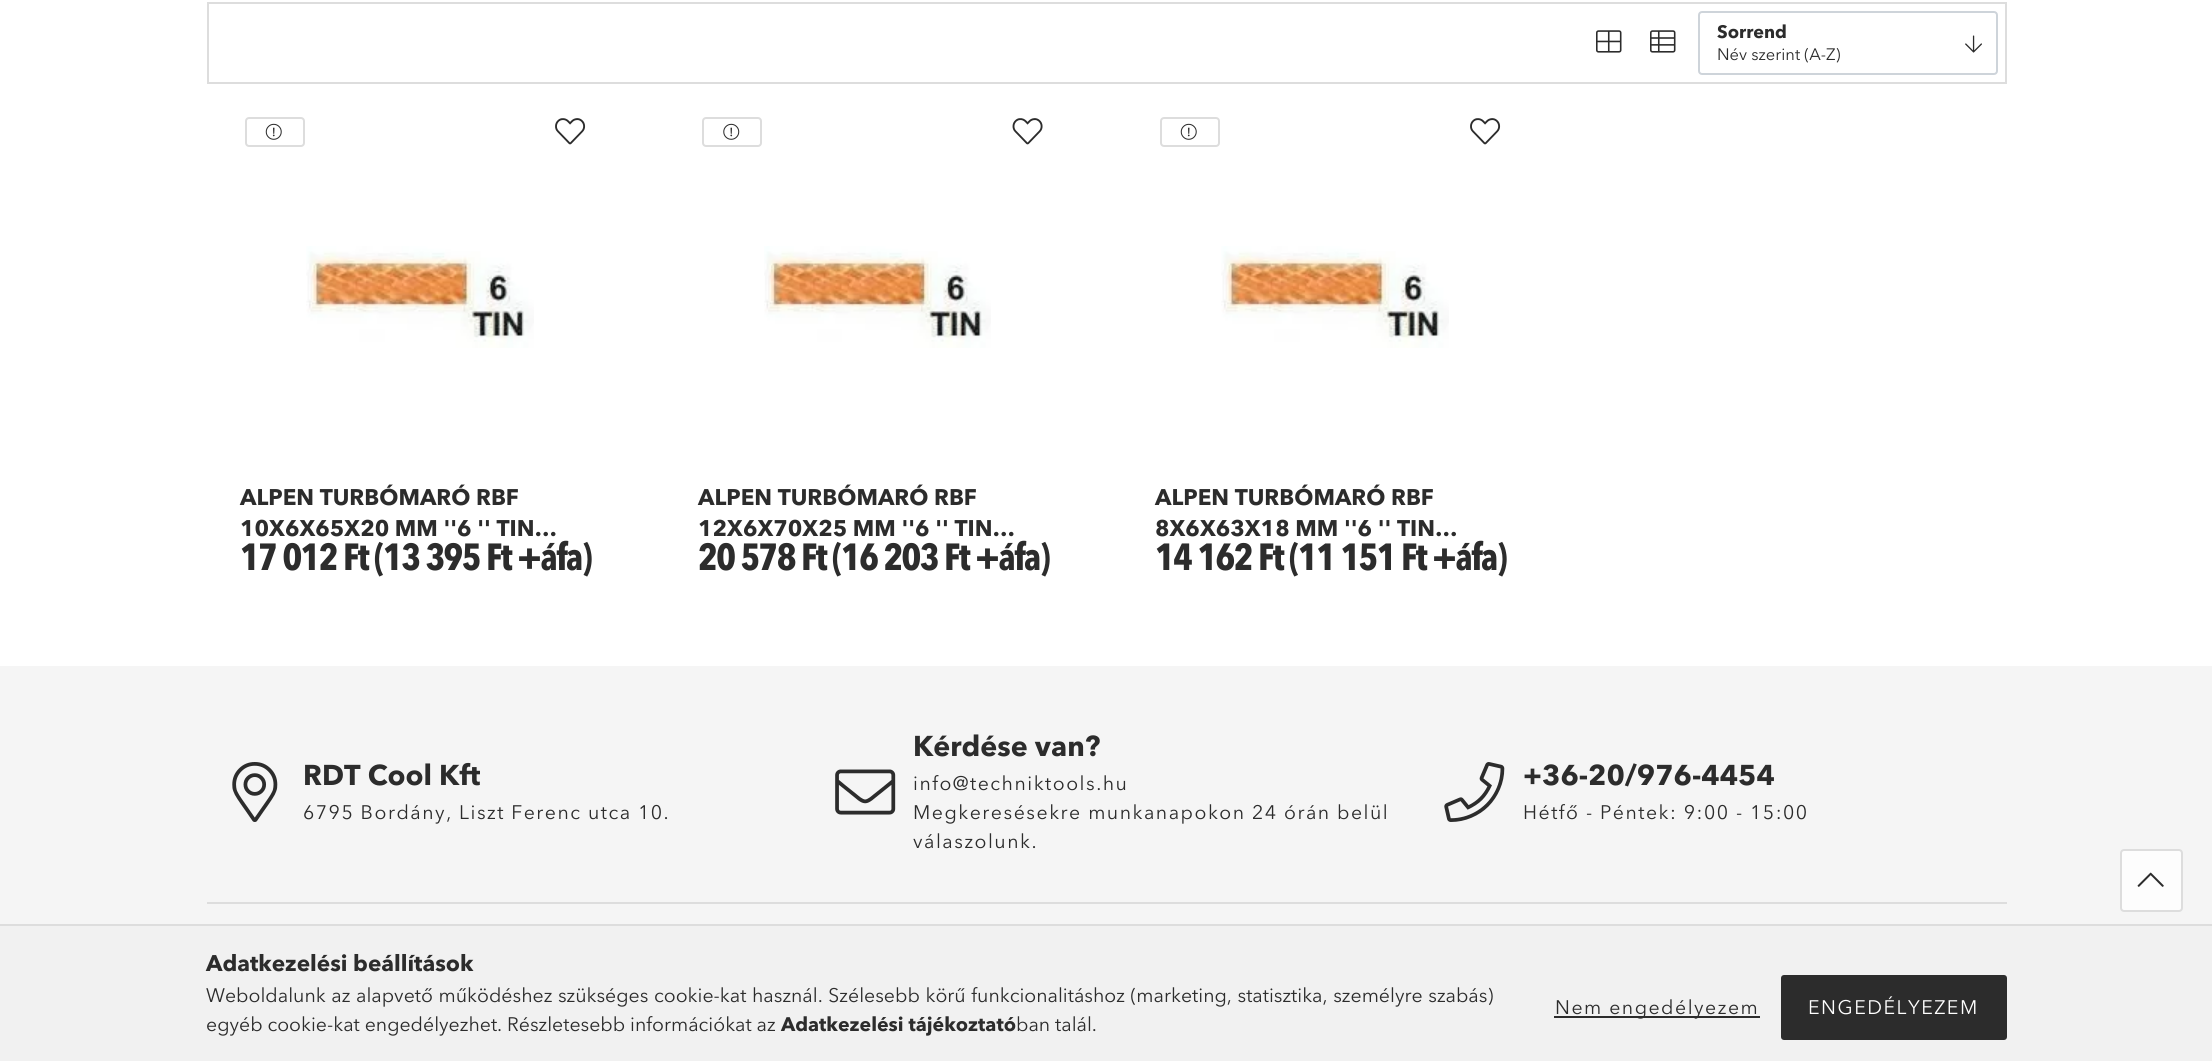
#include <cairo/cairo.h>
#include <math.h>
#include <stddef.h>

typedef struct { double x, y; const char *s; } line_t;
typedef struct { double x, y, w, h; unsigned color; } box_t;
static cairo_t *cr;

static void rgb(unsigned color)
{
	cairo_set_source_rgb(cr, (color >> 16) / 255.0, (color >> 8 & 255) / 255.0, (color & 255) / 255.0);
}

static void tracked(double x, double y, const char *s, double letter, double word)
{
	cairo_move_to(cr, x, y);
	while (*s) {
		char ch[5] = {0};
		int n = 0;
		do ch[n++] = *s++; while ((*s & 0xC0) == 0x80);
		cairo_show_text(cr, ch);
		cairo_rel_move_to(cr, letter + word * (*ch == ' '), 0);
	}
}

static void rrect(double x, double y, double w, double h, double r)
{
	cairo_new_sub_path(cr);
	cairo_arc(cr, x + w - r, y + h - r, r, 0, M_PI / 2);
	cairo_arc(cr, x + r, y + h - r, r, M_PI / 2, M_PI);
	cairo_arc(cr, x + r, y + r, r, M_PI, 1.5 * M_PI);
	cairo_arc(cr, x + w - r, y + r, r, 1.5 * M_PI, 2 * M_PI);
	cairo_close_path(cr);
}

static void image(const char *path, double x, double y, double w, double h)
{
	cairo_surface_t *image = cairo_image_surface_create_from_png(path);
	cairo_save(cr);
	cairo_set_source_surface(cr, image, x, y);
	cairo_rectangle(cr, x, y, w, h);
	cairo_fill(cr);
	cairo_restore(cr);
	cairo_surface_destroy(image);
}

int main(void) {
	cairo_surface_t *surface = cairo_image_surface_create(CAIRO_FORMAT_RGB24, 2212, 1061);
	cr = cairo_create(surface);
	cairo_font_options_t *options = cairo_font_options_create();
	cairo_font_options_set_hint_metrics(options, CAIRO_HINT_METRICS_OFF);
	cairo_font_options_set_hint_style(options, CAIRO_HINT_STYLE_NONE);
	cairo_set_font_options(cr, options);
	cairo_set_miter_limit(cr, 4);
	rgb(0xffffff);
	cairo_paint(cr);
	cairo_rectangle(cr, 208, 3, 1798, 80);
	rgb(0xdddddd);
	cairo_stroke(cr);
	image("img/1.png", 1596, 30, 26, 23);
	image("img/2.png", 1650, 30, 26, 23);
	rrect(1699, 12, 298, 62, 3);
	rgb(0xced4da);
	cairo_stroke(cr);
	image("img/3.png", 1965, 35, 17, 18);
	rrect(246, 118, 58, 28, 3);
	rgb(0xdddddd);
	cairo_stroke(cr);
	image("img/4.png", 265, 123, 17, 17);
	image("img/5.png", 555, 118, 31, 27);
	image("img/6.png", 306, 246, 228, 102);
	rrect(703, 118, 58, 28, 3);
	cairo_stroke(cr);
	image("img/7.png", 723, 123, 17, 17);
	image("img/8.png", 1012, 118, 31, 27);
	image("img/9.png", 764, 246, 227, 102);
	rrect(1161, 118, 58, 28, 3);
	cairo_stroke(cr);
	image("img/4.png", 1180, 123, 17, 17);
	image("img/5.png", 1470, 118, 31, 27);
	image("img/10.png", 1221, 246, 228, 102);
	rgb(0xf5f5f5);
	cairo_rectangle(cr, 0, 666, 2212, 258);
	cairo_fill(cr);
	image("img/11.png", 232, 762, 46, 60);
	image("img/12.png", 835, 769, 61, 46);
	image("img/13.png", 1444, 762, 61, 60);
	rgb(0xdddddd);
	cairo_rectangle(cr, 207, 902, 1800, 2);
	cairo_fill(cr);
	rgb(0xfdfdfd);
	rrect(2121, 850, 61, 61, 3);
	cairo_fill_preserve(cr);
	rgb(0xdddddd);
	cairo_stroke(cr);
	image("img/14.png", 2137, 872, 27, 15);
	{
		static const box_t items[] = {
			{0, 926, 2212, 135, 0xf1f1f1},
			{0, 924, 2212, 2, 0xdddddd},
			{1554, 1016, 206, 2, 0x2c2c2c},
		};
		for (size_t i = 0; i < sizeof items / sizeof *items; i++) {
			rgb(items[i].color);
			cairo_rectangle(cr, items[i].x, items[i].y, items[i].w, items[i].h);
			cairo_fill(cr);
		}
	}
	rrect(1782, 976, 224, 63, 2);
	cairo_fill_preserve(cr);
	cairo_stroke(cr);
	cairo_select_font_face(cr, "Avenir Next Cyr", CAIRO_FONT_SLANT_NORMAL, CAIRO_FONT_WEIGHT_BOLD);
	cairo_set_font_size(cr, 18);
	cairo_move_to(cr, 1717, 38);
	cairo_show_text(cr, "Sorrend");
	cairo_select_font_face(cr, "Avenir Next Cyr", CAIRO_FONT_SLANT_NORMAL, CAIRO_FONT_WEIGHT_NORMAL);
	cairo_set_font_size(cr, 16.5);
	cairo_move_to(cr, 1717, 60);
	cairo_show_text(cr, "Név szerint (A-Z)");
	cairo_select_font_face(cr, "Avenir Next Cyr", CAIRO_FONT_SLANT_NORMAL, CAIRO_FONT_WEIGHT_BOLD);
	cairo_set_font_size(cr, 22.5);
	cairo_move_to(cr, 240, 505);
	cairo_show_text(cr, "ALPEN TURBÓMARÓ RBF");
	cairo_move_to(cr, 240, 536);
	cairo_show_text(cr, "10X6X65X20 MM ''6 '' TIN…");
	cairo_select_font_face(cr, "Avenir Next", CAIRO_FONT_SLANT_NORMAL, CAIRO_FONT_WEIGHT_BOLD);
	cairo_set_font_size(cr, 37.5);
	tracked(240, 570, "17 012 Ft (13 395 Ft +áfa)", -1.5, 0);
	cairo_select_font_face(cr, "Avenir Next Cyr", CAIRO_FONT_SLANT_NORMAL, CAIRO_FONT_WEIGHT_BOLD);
	cairo_set_font_size(cr, 22.5);
	cairo_move_to(cr, 698, 505);
	cairo_show_text(cr, "ALPEN TURBÓMARÓ RBF");
	cairo_move_to(cr, 698, 536);
	cairo_show_text(cr, "12X6X70X25 MM ''6 '' TIN…");
	cairo_select_font_face(cr, "Avenir Next", CAIRO_FONT_SLANT_NORMAL, CAIRO_FONT_WEIGHT_BOLD);
	cairo_set_font_size(cr, 37.5);
	tracked(698, 570, "20 578 Ft (16 203 Ft +áfa)", -1.5, 0);
	cairo_select_font_face(cr, "Avenir Next Cyr", CAIRO_FONT_SLANT_NORMAL, CAIRO_FONT_WEIGHT_BOLD);
	cairo_set_font_size(cr, 22.5);
	cairo_move_to(cr, 1155, 505);
	cairo_show_text(cr, "ALPEN TURBÓMARÓ RBF");
	cairo_move_to(cr, 1155, 536);
	cairo_show_text(cr, "8X6X63X18 MM ''6 '' TIN…");
	cairo_select_font_face(cr, "Avenir Next", CAIRO_FONT_SLANT_NORMAL, CAIRO_FONT_WEIGHT_BOLD);
	cairo_set_font_size(cr, 37.5);
	tracked(1155, 570, "14 162 Ft (11 151 Ft +áfa)", -1.5, 0);
	cairo_select_font_face(cr, "Avenir Next Cyr", CAIRO_FONT_SLANT_NORMAL, CAIRO_FONT_WEIGHT_BOLD);
	cairo_set_font_size(cr, 28.5);
	cairo_move_to(cr, 303, 785);
	cairo_show_text(cr, "RDT Cool Kft");
	cairo_select_font_face(cr, "Avenir Next Cyr", CAIRO_FONT_SLANT_NORMAL, CAIRO_FONT_WEIGHT_NORMAL);
	cairo_set_font_size(cr, 19.5);
	tracked(303, 819, "6795 Bordány, Liszt Ferenc utca 10.", 1.5, 0);
	cairo_select_font_face(cr, "Avenir Next Cyr", CAIRO_FONT_SLANT_NORMAL, CAIRO_FONT_WEIGHT_BOLD);
	cairo_set_font_size(cr, 28.5);
	cairo_move_to(cr, 913, 756);
	cairo_show_text(cr, "Kérdése van?");
	cairo_select_font_face(cr, "Avenir Next Cyr", CAIRO_FONT_SLANT_NORMAL, CAIRO_FONT_WEIGHT_NORMAL);
	cairo_set_font_size(cr, 19.5);
	{
		static const line_t items[] = {
			{913, 790, "info@techniktools.hu"},
			{913, 819, "Megkeresésekre munkanapokon 24 órán belül"},
			{913, 848, "válaszolunk."},
		};
		for (size_t i = 0; i < sizeof items / sizeof *items; i++) {
			tracked(items[i].x, items[i].y, items[i].s, 1.5, 0);
		}
	}
	cairo_select_font_face(cr, "Avenir Next Cyr", CAIRO_FONT_SLANT_NORMAL, CAIRO_FONT_WEIGHT_BOLD);
	cairo_set_font_size(cr, 28.5);
	cairo_move_to(cr, 1523, 785);
	cairo_show_text(cr, "+36-20/976-4454");
	cairo_select_font_face(cr, "Avenir Next Cyr", CAIRO_FONT_SLANT_NORMAL, CAIRO_FONT_WEIGHT_NORMAL);
	cairo_set_font_size(cr, 19.5);
	tracked(1523, 819, "Hétfő - Péntek: 9:00 - 15:00", 1.5, 0);
	cairo_select_font_face(cr, "Avenir Next Cyr", CAIRO_FONT_SLANT_NORMAL, CAIRO_FONT_WEIGHT_BOLD);
	cairo_set_font_size(cr, 22.5);
	cairo_move_to(cr, 206, 971);
	cairo_show_text(cr, "Adatkezelési beállítások");
	cairo_select_font_face(cr, "Avenir Next Cyr", CAIRO_FONT_SLANT_NORMAL, CAIRO_FONT_WEIGHT_NORMAL);
	cairo_set_font_size(cr, 19.5);
	tracked(206, 1002, "Weboldalunk az alapvető működéshez szükséges cookie-kat használ. Szélesebb körű funkcionalitáshoz (marketing, statisztika, személyre szabás)", 0, 0.75);
	cairo_move_to(cr, 206, 1031);
	cairo_show_text(cr, "egyéb cookie-kat engedélyezhet. Részletesebb információkat az");
	cairo_select_font_face(cr, "Avenir Next Cyr", CAIRO_FONT_SLANT_NORMAL, CAIRO_FONT_WEIGHT_BOLD);
	cairo_move_to(cr, 781, 1031);
	cairo_show_text(cr, "Adatkezelési tájékoztató");
	cairo_select_font_face(cr, "Avenir Next Cyr", CAIRO_FONT_SLANT_NORMAL, CAIRO_FONT_WEIGHT_NORMAL);
	cairo_move_to(cr, 1016, 1031);
	cairo_show_text(cr, "ban talál.");
	tracked(1555, 1014, "Nem engedélyezem", 1.5, 0);
	rgb(0xffffff);
	tracked(1808, 1014, "ENGEDÉLYEZEM", 1.5, 0);
	cairo_surface_write_to_png(surface, "page.png");
	cairo_font_options_destroy(options);
	cairo_destroy(cr);
	cairo_surface_destroy(surface);
	return 0;
}
